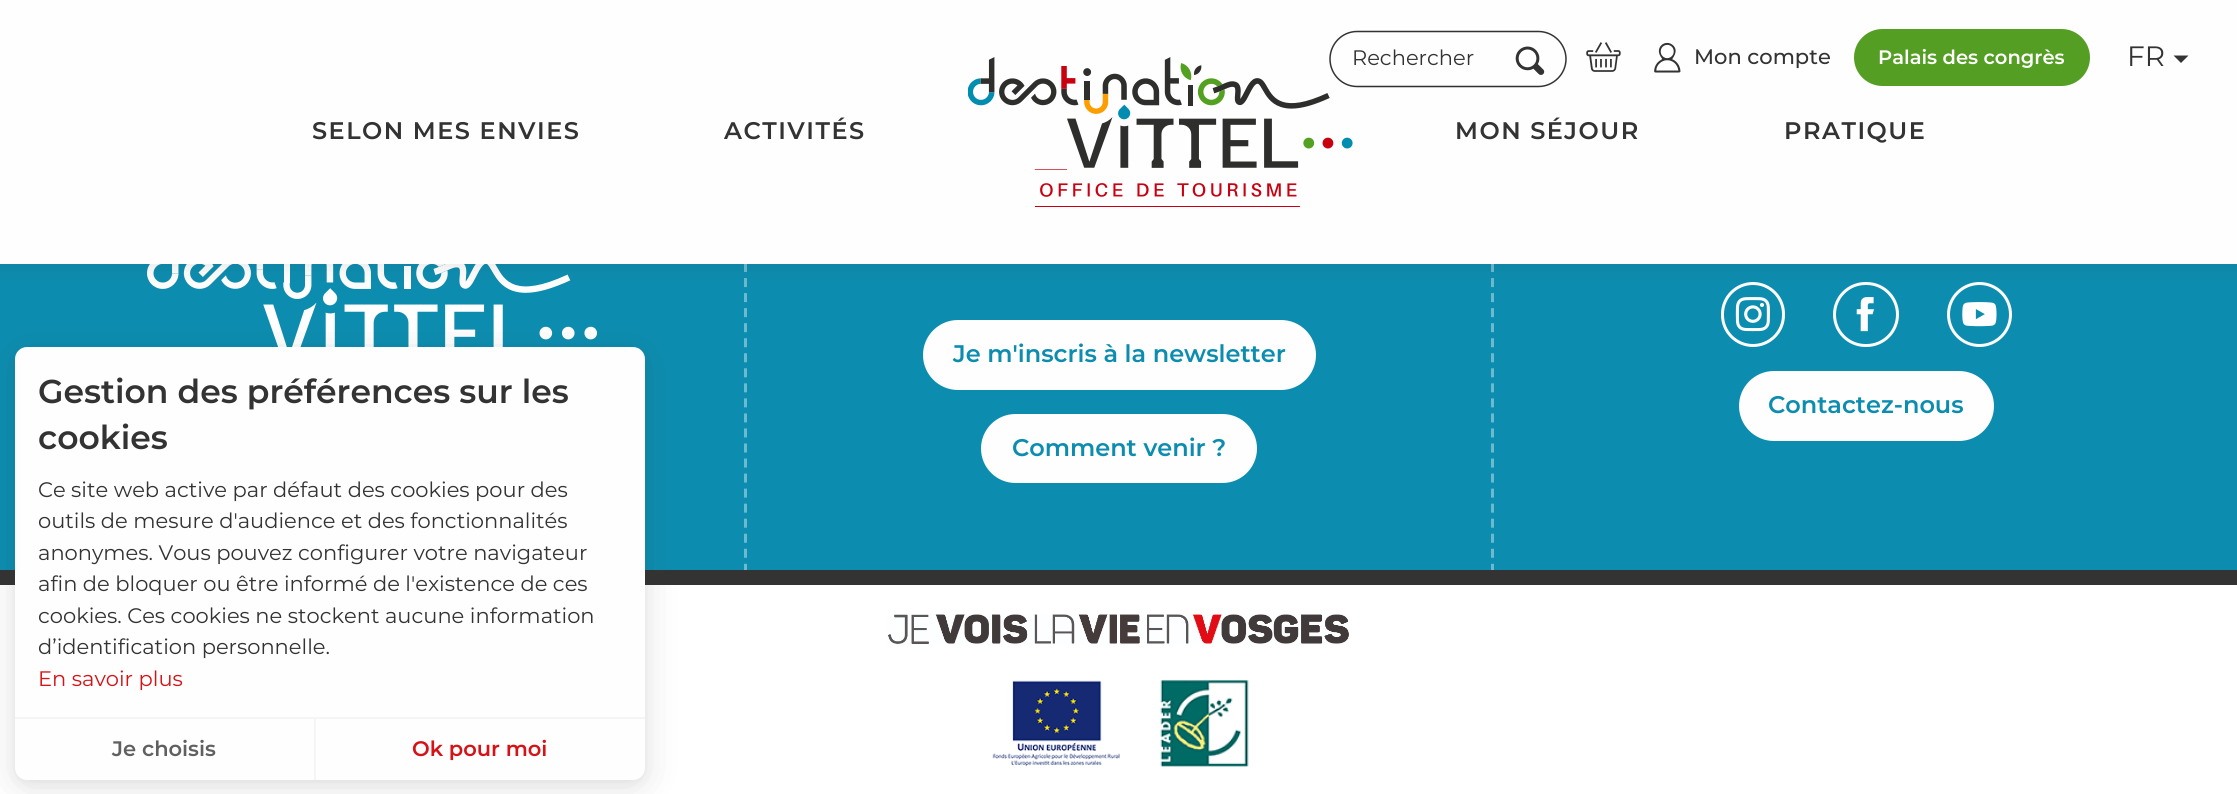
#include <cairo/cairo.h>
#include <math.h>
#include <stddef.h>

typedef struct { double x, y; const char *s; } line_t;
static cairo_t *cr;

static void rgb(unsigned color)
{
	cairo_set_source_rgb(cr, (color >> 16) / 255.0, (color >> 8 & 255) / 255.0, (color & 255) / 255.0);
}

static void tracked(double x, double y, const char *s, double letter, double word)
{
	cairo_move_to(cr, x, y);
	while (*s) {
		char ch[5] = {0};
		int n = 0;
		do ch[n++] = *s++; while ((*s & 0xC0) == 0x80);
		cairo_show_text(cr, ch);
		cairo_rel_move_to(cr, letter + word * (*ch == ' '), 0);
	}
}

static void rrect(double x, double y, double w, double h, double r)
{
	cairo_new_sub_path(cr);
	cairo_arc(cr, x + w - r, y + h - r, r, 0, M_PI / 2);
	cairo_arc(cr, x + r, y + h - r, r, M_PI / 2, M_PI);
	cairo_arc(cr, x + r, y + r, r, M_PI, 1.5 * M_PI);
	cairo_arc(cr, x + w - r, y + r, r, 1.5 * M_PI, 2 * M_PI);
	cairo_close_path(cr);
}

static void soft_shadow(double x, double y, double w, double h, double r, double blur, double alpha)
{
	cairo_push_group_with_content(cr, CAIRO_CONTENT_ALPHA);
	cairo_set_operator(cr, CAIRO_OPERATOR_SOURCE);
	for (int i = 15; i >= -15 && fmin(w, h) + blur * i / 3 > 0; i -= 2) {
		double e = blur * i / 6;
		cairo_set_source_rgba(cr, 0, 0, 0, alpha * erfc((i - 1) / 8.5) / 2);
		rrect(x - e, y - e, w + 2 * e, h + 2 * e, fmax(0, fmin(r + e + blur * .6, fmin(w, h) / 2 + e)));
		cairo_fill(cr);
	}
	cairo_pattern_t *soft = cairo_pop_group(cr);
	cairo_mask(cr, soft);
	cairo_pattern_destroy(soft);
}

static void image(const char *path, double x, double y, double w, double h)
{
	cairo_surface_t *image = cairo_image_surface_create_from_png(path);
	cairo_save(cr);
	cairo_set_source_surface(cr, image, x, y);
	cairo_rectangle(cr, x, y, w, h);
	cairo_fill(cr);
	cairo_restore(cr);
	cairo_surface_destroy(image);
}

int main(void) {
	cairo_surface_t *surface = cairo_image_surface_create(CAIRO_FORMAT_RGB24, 2237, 794);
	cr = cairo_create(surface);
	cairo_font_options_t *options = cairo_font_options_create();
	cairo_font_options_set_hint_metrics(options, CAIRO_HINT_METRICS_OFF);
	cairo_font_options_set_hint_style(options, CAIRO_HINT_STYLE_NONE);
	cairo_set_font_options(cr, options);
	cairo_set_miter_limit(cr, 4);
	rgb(0xffffff);
	cairo_paint(cr);
	rgb(0x0c8db0);
	cairo_rectangle(cr, 0, 264, 2237, 306);
	cairo_fill(cr);
	cairo_new_path(cr);
	cairo_move_to(cr, 745.5, 67.5);
	cairo_line_to(cr, 745.5, 573);
	cairo_set_source_rgba(cr, 0.996, 0.996, 0.996, 0.4);
	cairo_set_line_width(cr, 3);
	cairo_set_dash(cr, (double[]){9, 6.04}, 2, 0);
	cairo_stroke(cr);
	image("img/5.png", 147, 264, 450, 83);
	cairo_new_path(cr);
	cairo_move_to(cr, 1492.5, 67.5);
	cairo_line_to(cr, 1492.5, 573);
	cairo_stroke(cr);
	rrect(1722.5, 283.5, 61, 62, 30.5);
	rgb(0xfefefe);
	cairo_set_dash(cr, NULL, 0, 0);
	cairo_stroke(cr);
	image("img/6.png", 1735, 297, 35, 35);
	rrect(1834.5, 283.5, 63, 62, 31);
	cairo_stroke(cr);
	image("img/7.png", 1856, 297, 18, 35);
	cairo_arc(cr, 1979.5, 314.5, 31, 0, 2 * M_PI);
	cairo_stroke(cr);
	image("img/8.png", 1962, 302, 35, 25);
	rgb(0x333333);
	soft_shadow(-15, -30, 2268, 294, 0, 15, 0.15);
	rgb(0xfefefe);
	cairo_rectangle(cr, 0, 0, 2237, 264);
	cairo_fill(cr);
	cairo_new_path(cr);
	cairo_move_to(cr, 1538.5, 31.5);
	cairo_line_to(cr, 1357, 31.5);
	cairo_curve_to(cr, 1342, 31.5, 1330, 44, 1330, 59);
	cairo_curve_to(cr, 1330, 74, 1342, 86.5, 1357, 86.5);
	cairo_line_to(cr, 1538.5, 86.5);
	cairo_curve_to(cr, 1553.5, 86.5, 1566, 74, 1566, 59);
	cairo_curve_to(cr, 1566, 44, 1553.5, 31.5, 1538.5, 31.5);
	cairo_close_path(cr);
	rgb(0x333333);
	cairo_set_line_width(cr, 1.5);
	cairo_stroke(cr);
	image("img/1.png", 1515, 46, 30, 29);
	image("img/2.png", 1586, 42, 35, 30);
	image("img/3.png", 1654, 42, 27, 31);
	rgb(0x549f23);
	rrect(1855, 30, 234, 55, 27.5);
	cairo_fill_preserve(cr);
	cairo_set_line_width(cr, 2);
	cairo_stroke(cr);
	rgb(0x333333);
	cairo_new_path(cr);
	cairo_move_to(cr, 2173.5, 55.5);
	cairo_line_to(cr, 2188.5, 55.5);
	cairo_line_to(cr, 2181, 63);
	cairo_close_path(cr);
	cairo_fill(cr);
	image("img/4.png", 968, 57, 385, 150);
	rgb(0xfefefe);
	rrect(924, 321, 391, 68, 34);
	cairo_fill_preserve(cr);
	cairo_stroke(cr);
	rrect(982, 415, 274, 67, 33.5);
	cairo_fill_preserve(cr);
	cairo_stroke(cr);
	rrect(1740, 372, 253, 68, 34);
	cairo_fill_preserve(cr);
	cairo_stroke(cr);
	rgb(0x333333);
	cairo_rectangle(cr, 0, 570, 2237, 15);
	cairo_fill(cr);
	image("img/9.png", 887, 614, 462, 31);
	image("img/10.png", 992, 680, 128, 86);
	image("img/11.png", 1160, 680, 89, 87);
	rgb(0x333333);
	soft_shadow(15, 350, 630, 433, 12, 4.5, 0.05);
	soft_shadow(15, 353, 630, 433, 12, 18, 0.15);
	rgb(0xfefefe);
	rrect(15, 347, 630, 433, 12);
	cairo_fill(cr);
	rgb(0xf5f5f5);
	cairo_rectangle(cr, 15, 717, 630, 2);
	cairo_fill(cr);
	cairo_rectangle(cr, 314, 719, 2, 61);
	cairo_fill(cr);
	cairo_select_font_face(cr, "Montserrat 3 Thin", CAIRO_FONT_SLANT_NORMAL, CAIRO_FONT_WEIGHT_NORMAL);
	cairo_set_font_size(cr, 21);
	rgb(0x333333);
	cairo_move_to(cr, 1352, 65);
	cairo_show_text(cr, "Rechercher");
	cairo_select_font_face(cr, "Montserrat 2 Thin", CAIRO_FONT_SLANT_NORMAL, CAIRO_FONT_WEIGHT_NORMAL);
	cairo_move_to(cr, 1694, 64);
	cairo_show_text(cr, "Mon compte");
	cairo_select_font_face(cr, "Montserrat Thin", CAIRO_FONT_SLANT_NORMAL, CAIRO_FONT_WEIGHT_NORMAL);
	cairo_set_font_size(cr, 19.5);
	rgb(0xfefefe);
	cairo_move_to(cr, 1878, 64);
	cairo_show_text(cr, "Palais des congrès");
	cairo_select_font_face(cr, "Montserrat 3 Thin", CAIRO_FONT_SLANT_NORMAL, CAIRO_FONT_WEIGHT_NORMAL);
	cairo_set_font_size(cr, 28);
	rgb(0x333333);
	cairo_move_to(cr, 2127, 66);
	cairo_show_text(cr, "FR");
	cairo_select_font_face(cr, "Montserrat Thin", CAIRO_FONT_SLANT_NORMAL, CAIRO_FONT_WEIGHT_NORMAL);
	cairo_set_font_size(cr, 24);
	{
		static const line_t items[] = {
			{312, 139, "SELON MES ENVIES"},
			{724, 139, "ACTIVITÉS"},
			{1455, 139, "MON SÉJOUR"},
			{1784, 139, "PRATIQUE"},
		};
		for (size_t i = 0; i < sizeof items / sizeof *items; i++) {
			tracked(items[i].x, items[i].y, items[i].s, 1.5, 0);
		}
	}
	rgb(0x0c8db0);
	{
		static const line_t items[] = {
			{953, 362, "Je m'inscris à la newsletter"},
			{1012, 456, "Comment venir ?"},
			{1768, 413, "Contactez-nous"},
		};
		for (size_t i = 0; i < sizeof items / sizeof *items; i++) {
			cairo_move_to(cr, items[i].x, items[i].y);
			cairo_show_text(cr, items[i].s);
		}
	}
	cairo_set_font_size(cr, 33);
	rgb(0x333333);
	cairo_move_to(cr, 38, 403);
	cairo_show_text(cr, "Gestion des préférences sur les");
	cairo_move_to(cr, 38, 449);
	cairo_show_text(cr, "cookies");
	cairo_select_font_face(cr, "Montserrat 3 Thin", CAIRO_FONT_SLANT_NORMAL, CAIRO_FONT_WEIGHT_NORMAL);
	cairo_set_font_size(cr, 21);
	{
		static const line_t items[] = {
			{38, 497, "Ce site web active par défaut des cookies pour des"},
			{38, 528, "outils de mesure d'audience et des fonctionnalités"},
			{38, 560, "anonymes. Vous pouvez configurer votre navigateur"},
			{38, 591, "afin de bloquer ou être informé de l'existence de ces"},
			{38, 623, "cookies. Ces cookies ne stockent aucune information"},
			{38, 654, "d’identification personnelle."},
		};
		for (size_t i = 0; i < sizeof items / sizeof *items; i++) {
			cairo_move_to(cr, items[i].x, items[i].y);
			cairo_show_text(cr, items[i].s);
		}
	}
	rgb(0xd51317);
	cairo_move_to(cr, 38, 686);
	cairo_show_text(cr, "En savoir plus");
	cairo_select_font_face(cr, "Montserrat Thin", CAIRO_FONT_SLANT_NORMAL, CAIRO_FONT_WEIGHT_NORMAL);
	rgb(0x606060);
	cairo_move_to(cr, 112, 756);
	cairo_show_text(cr, "Je choisis");
	rgb(0xd51317);
	cairo_move_to(cr, 412, 756);
	cairo_show_text(cr, "Ok pour moi");
	cairo_surface_write_to_png(surface, "page.png");
	cairo_font_options_destroy(options);
	cairo_destroy(cr);
	cairo_surface_destroy(surface);
	return 0;
}
